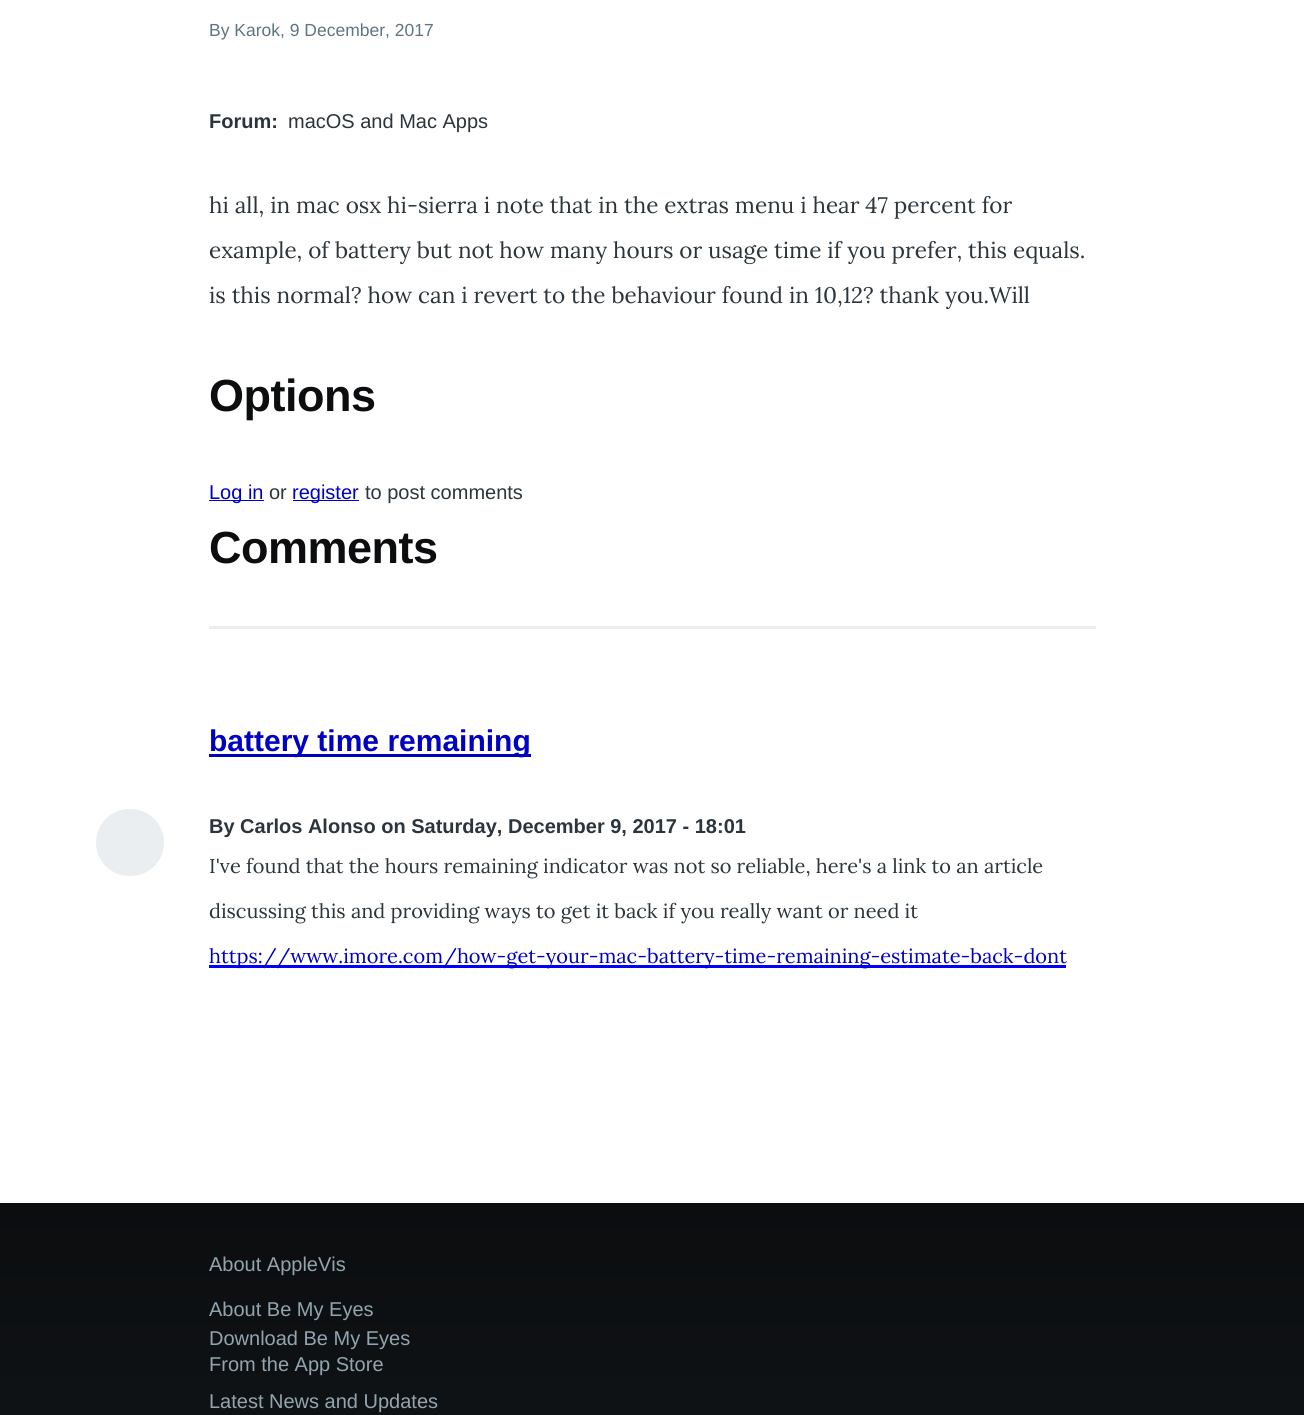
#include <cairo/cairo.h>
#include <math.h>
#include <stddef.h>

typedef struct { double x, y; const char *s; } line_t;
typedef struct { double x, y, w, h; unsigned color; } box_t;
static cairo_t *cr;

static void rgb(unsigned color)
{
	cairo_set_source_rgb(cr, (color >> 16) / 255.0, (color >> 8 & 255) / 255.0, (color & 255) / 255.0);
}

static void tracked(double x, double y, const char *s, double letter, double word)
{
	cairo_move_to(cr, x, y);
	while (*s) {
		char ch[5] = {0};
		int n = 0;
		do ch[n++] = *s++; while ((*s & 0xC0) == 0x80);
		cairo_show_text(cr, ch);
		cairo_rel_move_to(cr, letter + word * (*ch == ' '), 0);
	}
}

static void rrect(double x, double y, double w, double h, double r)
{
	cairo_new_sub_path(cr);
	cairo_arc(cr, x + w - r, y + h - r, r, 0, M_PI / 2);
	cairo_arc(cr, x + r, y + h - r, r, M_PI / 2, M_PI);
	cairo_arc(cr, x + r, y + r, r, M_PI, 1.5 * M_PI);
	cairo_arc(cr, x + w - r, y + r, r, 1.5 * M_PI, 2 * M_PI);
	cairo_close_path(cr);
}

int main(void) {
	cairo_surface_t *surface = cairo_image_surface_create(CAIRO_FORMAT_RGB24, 1304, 1415);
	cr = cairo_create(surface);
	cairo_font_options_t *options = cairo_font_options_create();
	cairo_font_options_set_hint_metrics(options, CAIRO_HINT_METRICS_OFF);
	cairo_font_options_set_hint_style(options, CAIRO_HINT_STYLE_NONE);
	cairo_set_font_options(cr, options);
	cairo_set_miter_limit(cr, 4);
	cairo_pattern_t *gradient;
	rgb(0xffffff);
	cairo_paint(cr);
	{
		static const box_t items[] = {
			{209, 500, 55, 1, 0x0000c2},
			{293, 500, 66, 1, 0x0000c2},
			{209, 626, 887, 3, 0xeaeef0},
			{209, 754, 322, 3, 0x0000c2},
		};
		for (size_t i = 0; i < sizeof items / sizeof *items; i++) {
			rgb(items[i].color);
			cairo_rectangle(cr, items[i].x, items[i].y, items[i].w, items[i].h);
			cairo_fill(cr);
		}
	}
	rgb(0xeaeef0);
	rrect(96, 809, 68, 67, 33.5);
	cairo_fill(cr);
	rgb(0x0000ff);
	cairo_rectangle(cr, 209, 965, 857, 3);
	cairo_fill(cr);
	gradient = cairo_pattern_create_linear(653, 1203, 653, 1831);
	cairo_pattern_add_color_stop_rgba(gradient, 0, 0.043, 0.051, 0.059, 1);
	cairo_pattern_add_color_stop_rgba(gradient, 1, 0.094, 0.114, 0.125, 1);
	cairo_set_source(cr, gradient);
	cairo_pattern_destroy(gradient);
	cairo_rectangle(cr, 0, 1203, 1304, 212);
	cairo_fill(cr);
	cairo_select_font_face(cr, "Liberation Sans", CAIRO_FONT_SLANT_NORMAL, CAIRO_FONT_WEIGHT_NORMAL);
	cairo_set_font_size(cr, 17.5);
	rgb(0x5f7581);
	cairo_move_to(cr, 209, 36);
	cairo_show_text(cr, "By Karok, 9 December, 2017");
	cairo_select_font_face(cr, "Liberation Sans", CAIRO_FONT_SLANT_NORMAL, CAIRO_FONT_WEIGHT_BOLD);
	cairo_set_font_size(cr, 20);
	rgb(0x2b353b);
	cairo_move_to(cr, 209, 128);
	cairo_show_text(cr, "Forum:");
	cairo_select_font_face(cr, "Liberation Sans", CAIRO_FONT_SLANT_NORMAL, CAIRO_FONT_WEIGHT_NORMAL);
	cairo_move_to(cr, 288, 128);
	cairo_show_text(cr, "macOS and Mac Apps");
	cairo_select_font_face(cr, "Lora", CAIRO_FONT_SLANT_NORMAL, CAIRO_FONT_WEIGHT_NORMAL);
	cairo_set_font_size(cr, 22.5);
	{
		static const line_t items[] = {
			{209, 213, "hi all, in mac osx hi-sierra i note that in the extras menu i hear 47 percent for"},
			{209, 258, "example, of battery but not how many hours or usage time if you prefer, this equals."},
			{209, 303, "is this normal? how can i revert to the behaviour found in 10,12? thank you.Will"},
		};
		for (size_t i = 0; i < sizeof items / sizeof *items; i++) {
			cairo_move_to(cr, items[i].x, items[i].y);
			cairo_show_text(cr, items[i].s);
		}
	}
	cairo_select_font_face(cr, "Liberation Sans", CAIRO_FONT_SLANT_NORMAL, CAIRO_FONT_WEIGHT_BOLD);
	cairo_set_font_size(cr, 45);
	rgb(0x0b0d0f);
	tracked(209, 411, "Options", -0.5, 0);
	cairo_select_font_face(cr, "Liberation Sans", CAIRO_FONT_SLANT_NORMAL, CAIRO_FONT_WEIGHT_NORMAL);
	cairo_set_font_size(cr, 20);
	rgb(0x0000c2);
	cairo_move_to(cr, 209, 499);
	cairo_show_text(cr, "Log in");
	rgb(0x2b353b);
	cairo_move_to(cr, 269, 499);
	cairo_show_text(cr, "or");
	rgb(0x0000c2);
	cairo_move_to(cr, 292, 499);
	cairo_show_text(cr, "register");
	rgb(0x2b353b);
	cairo_move_to(cr, 365, 499);
	cairo_show_text(cr, "to post comments");
	cairo_select_font_face(cr, "Liberation Sans", CAIRO_FONT_SLANT_NORMAL, CAIRO_FONT_WEIGHT_BOLD);
	cairo_set_font_size(cr, 45);
	rgb(0x0b0d0f);
	tracked(209, 563, "Comments", -0.5, 0);
	cairo_set_font_size(cr, 30);
	rgb(0x0000c2);
	cairo_move_to(cr, 209, 751);
	cairo_show_text(cr, "battery time remaining");
	cairo_set_font_size(cr, 20);
	rgb(0x2b353b);
	cairo_move_to(cr, 209, 833);
	cairo_show_text(cr, "By Carlos Alonso on Saturday, December 9, 2017 - 18:01");
	cairo_select_font_face(cr, "Lora", CAIRO_FONT_SLANT_NORMAL, CAIRO_FONT_WEIGHT_NORMAL);
	cairo_move_to(cr, 209, 873);
	cairo_show_text(cr, "I've found that the hours remaining indicator was not so reliable, here's a link to an article");
	cairo_move_to(cr, 209, 918);
	cairo_show_text(cr, "discussing this and providing ways to get it back if you really want or need it");
	rgb(0x0000c2);
	cairo_move_to(cr, 209, 963);
	cairo_show_text(cr, "https://www.imore.com/how-get-your-mac-battery-time-remaining-estimate-back-dont");
	cairo_select_font_face(cr, "Liberation Sans", CAIRO_FONT_SLANT_NORMAL, CAIRO_FONT_WEIGHT_NORMAL);
	rgb(0x92a5af);
	{
		static const line_t items[] = {
			{209, 1271, "About AppleVis"},
			{209, 1316, "About Be My Eyes"},
			{209, 1345, "Download Be My Eyes"},
			{209, 1371, "From the App Store"},
			{209, 1408, "Latest News and Updates"},
		};
		for (size_t i = 0; i < sizeof items / sizeof *items; i++) {
			cairo_move_to(cr, items[i].x, items[i].y);
			cairo_show_text(cr, items[i].s);
		}
	}
	cairo_surface_write_to_png(surface, "page.png");
	cairo_font_options_destroy(options);
	cairo_destroy(cr);
	cairo_surface_destroy(surface);
	return 0;
}
